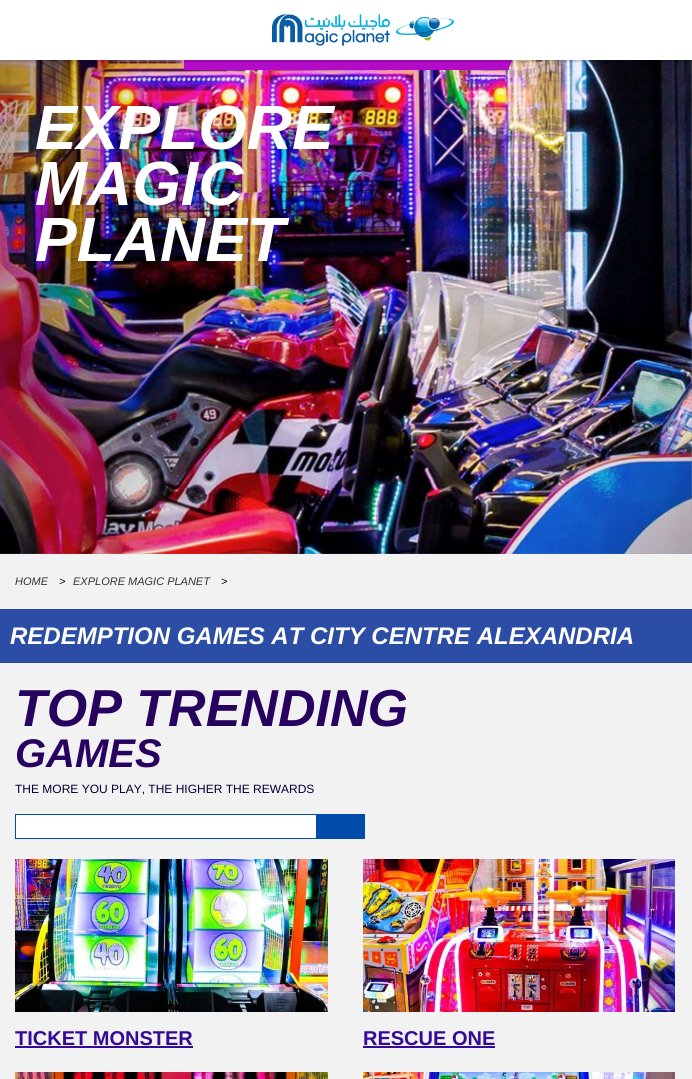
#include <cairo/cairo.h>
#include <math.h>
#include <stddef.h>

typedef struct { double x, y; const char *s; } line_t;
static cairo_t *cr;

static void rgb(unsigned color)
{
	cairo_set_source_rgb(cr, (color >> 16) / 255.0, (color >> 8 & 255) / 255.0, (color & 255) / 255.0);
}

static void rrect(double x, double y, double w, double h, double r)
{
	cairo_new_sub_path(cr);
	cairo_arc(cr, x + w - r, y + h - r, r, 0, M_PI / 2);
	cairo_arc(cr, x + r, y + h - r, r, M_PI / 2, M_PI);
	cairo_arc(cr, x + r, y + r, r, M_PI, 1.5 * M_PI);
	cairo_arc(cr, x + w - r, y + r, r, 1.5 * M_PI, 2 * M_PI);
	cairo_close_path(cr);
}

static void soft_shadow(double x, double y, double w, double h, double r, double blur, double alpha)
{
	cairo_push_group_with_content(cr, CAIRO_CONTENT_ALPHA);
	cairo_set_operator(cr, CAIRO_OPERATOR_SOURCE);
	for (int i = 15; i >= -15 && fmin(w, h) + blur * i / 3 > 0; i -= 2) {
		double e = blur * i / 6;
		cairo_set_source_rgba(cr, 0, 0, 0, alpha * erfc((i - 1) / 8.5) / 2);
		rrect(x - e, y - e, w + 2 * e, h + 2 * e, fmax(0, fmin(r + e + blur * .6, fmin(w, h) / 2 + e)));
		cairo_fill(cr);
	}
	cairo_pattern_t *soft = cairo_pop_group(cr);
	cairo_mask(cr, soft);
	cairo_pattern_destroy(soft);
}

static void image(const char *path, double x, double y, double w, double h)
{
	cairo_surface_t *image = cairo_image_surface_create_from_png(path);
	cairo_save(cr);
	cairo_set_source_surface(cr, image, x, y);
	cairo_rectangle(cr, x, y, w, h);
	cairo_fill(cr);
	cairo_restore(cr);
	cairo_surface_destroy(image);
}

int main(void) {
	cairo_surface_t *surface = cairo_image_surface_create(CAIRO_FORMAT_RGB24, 692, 1079);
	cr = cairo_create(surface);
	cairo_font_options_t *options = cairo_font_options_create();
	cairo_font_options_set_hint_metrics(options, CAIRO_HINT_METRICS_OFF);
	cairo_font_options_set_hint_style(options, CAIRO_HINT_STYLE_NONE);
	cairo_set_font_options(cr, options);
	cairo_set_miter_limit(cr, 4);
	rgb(0xf2f2f2);
	cairo_paint(cr);
	rgb(0xa0a0a0);
	cairo_rectangle(cr, 0, 60, 692, 494);
	cairo_fill(cr);
	image("img/2.png", 0, 60, 692, 494);
	rgb(0xb40bc8);
	cairo_rectangle(cr, 184, 60, 325, 10);
	cairo_fill(cr);
	cairo_new_path(cr);
	cairo_move_to(cr, 508, 0);
	cairo_line_to(cr, 538, 0);
	cairo_line_to(cr, 508, 70);
	cairo_close_path(cr);
	cairo_fill(cr);
	rgb(0x000000);
	soft_shadow(0, 0, 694, 62, 0, 0.5, 0.15);
	rgb(0xffffff);
	cairo_rectangle(cr, 0, 0, 692, 60);
	cairo_fill(cr);
	image("img/1.png", 272, 14, 182, 32);
	rgb(0x2b4da6);
	cairo_rectangle(cr, 0, 609, 692, 54);
	cairo_fill(cr);
	rgb(0xffffff);
	cairo_rectangle(cr, 16, 815, 300, 23);
	cairo_fill(cr);
	cairo_rectangle(cr, 15.5, 814.5, 349, 24);
	rgb(0x004caa);
	cairo_set_line_width(cr, 1);
	cairo_stroke(cr);
	cairo_rectangle(cr, 316, 815, 48, 23);
	cairo_fill(cr);
	image("img/3.png", 15, 859, 313, 153);
	rgb(0x340a97);
	cairo_rectangle(cr, 15, 1046, 178, 2);
	cairo_fill(cr);
	image("img/4.png", 363, 859, 312, 153);
	cairo_rectangle(cr, 363, 1046, 132, 2);
	cairo_fill(cr);
	image("img/5.png", 15, 1072, 313, 7);
	image("img/6.png", 363, 1072, 312, 7);
	cairo_select_font_face(cr, "Liberation Sans", CAIRO_FONT_SLANT_ITALIC, CAIRO_FONT_WEIGHT_BOLD);
	cairo_set_font_size(cr, 62.5);
	rgb(0xffffff);
	{
		static const line_t items[] = {
			{35, 149, "EXPLORE"},
			{35, 205, "MAGIC"},
			{35, 261, "PLANET"},
		};
		for (size_t i = 0; i < sizeof items / sizeof *items; i++) {
			cairo_move_to(cr, items[i].x, items[i].y);
			cairo_show_text(cr, items[i].s);
		}
	}
	cairo_select_font_face(cr, "Liberation Sans", CAIRO_FONT_SLANT_ITALIC, CAIRO_FONT_WEIGHT_NORMAL);
	cairo_set_font_size(cr, 11);
	rgb(0x333333);
	cairo_move_to(cr, 15, 585);
	cairo_show_text(cr, "HOME");
	rgb(0x000000);
	cairo_move_to(cr, 59, 585);
	cairo_show_text(cr, ">");
	rgb(0x333333);
	cairo_move_to(cr, 73, 585);
	cairo_show_text(cr, "EXPLORE MAGIC PLANET");
	rgb(0x000000);
	cairo_move_to(cr, 221, 585);
	cairo_show_text(cr, ">");
	cairo_select_font_face(cr, "Liberation Sans", CAIRO_FONT_SLANT_ITALIC, CAIRO_FONT_WEIGHT_BOLD);
	cairo_set_font_size(cr, 24);
	rgb(0xffffff);
	cairo_move_to(cr, 10, 644);
	cairo_show_text(cr, "REDEMPTION GAMES AT CITY CENTRE ALEXANDRIA");
	cairo_set_font_size(cr, 52);
	rgb(0x27025f);
	cairo_move_to(cr, 15, 726);
	cairo_show_text(cr, "TOP TRENDING");
	cairo_set_font_size(cr, 40);
	cairo_move_to(cr, 15, 767);
	cairo_show_text(cr, "GAMES");
	cairo_select_font_face(cr, "Liberation Sans", CAIRO_FONT_SLANT_NORMAL, CAIRO_FONT_WEIGHT_NORMAL);
	cairo_set_font_size(cr, 12);
	rgb(0x000034);
	cairo_move_to(cr, 15, 793);
	cairo_show_text(cr, "THE MORE YOU PLAY, THE HIGHER THE REWARDS");
	cairo_select_font_face(cr, "Liberation Sans", CAIRO_FONT_SLANT_NORMAL, CAIRO_FONT_WEIGHT_BOLD);
	cairo_set_font_size(cr, 20);
	rgb(0x340a97);
	cairo_move_to(cr, 15, 1045);
	cairo_show_text(cr, "TICKET MONSTER");
	cairo_move_to(cr, 363, 1045);
	cairo_show_text(cr, "RESCUE ONE");
	cairo_surface_write_to_png(surface, "page.png");
	cairo_font_options_destroy(options);
	cairo_destroy(cr);
	cairo_surface_destroy(surface);
	return 0;
}
